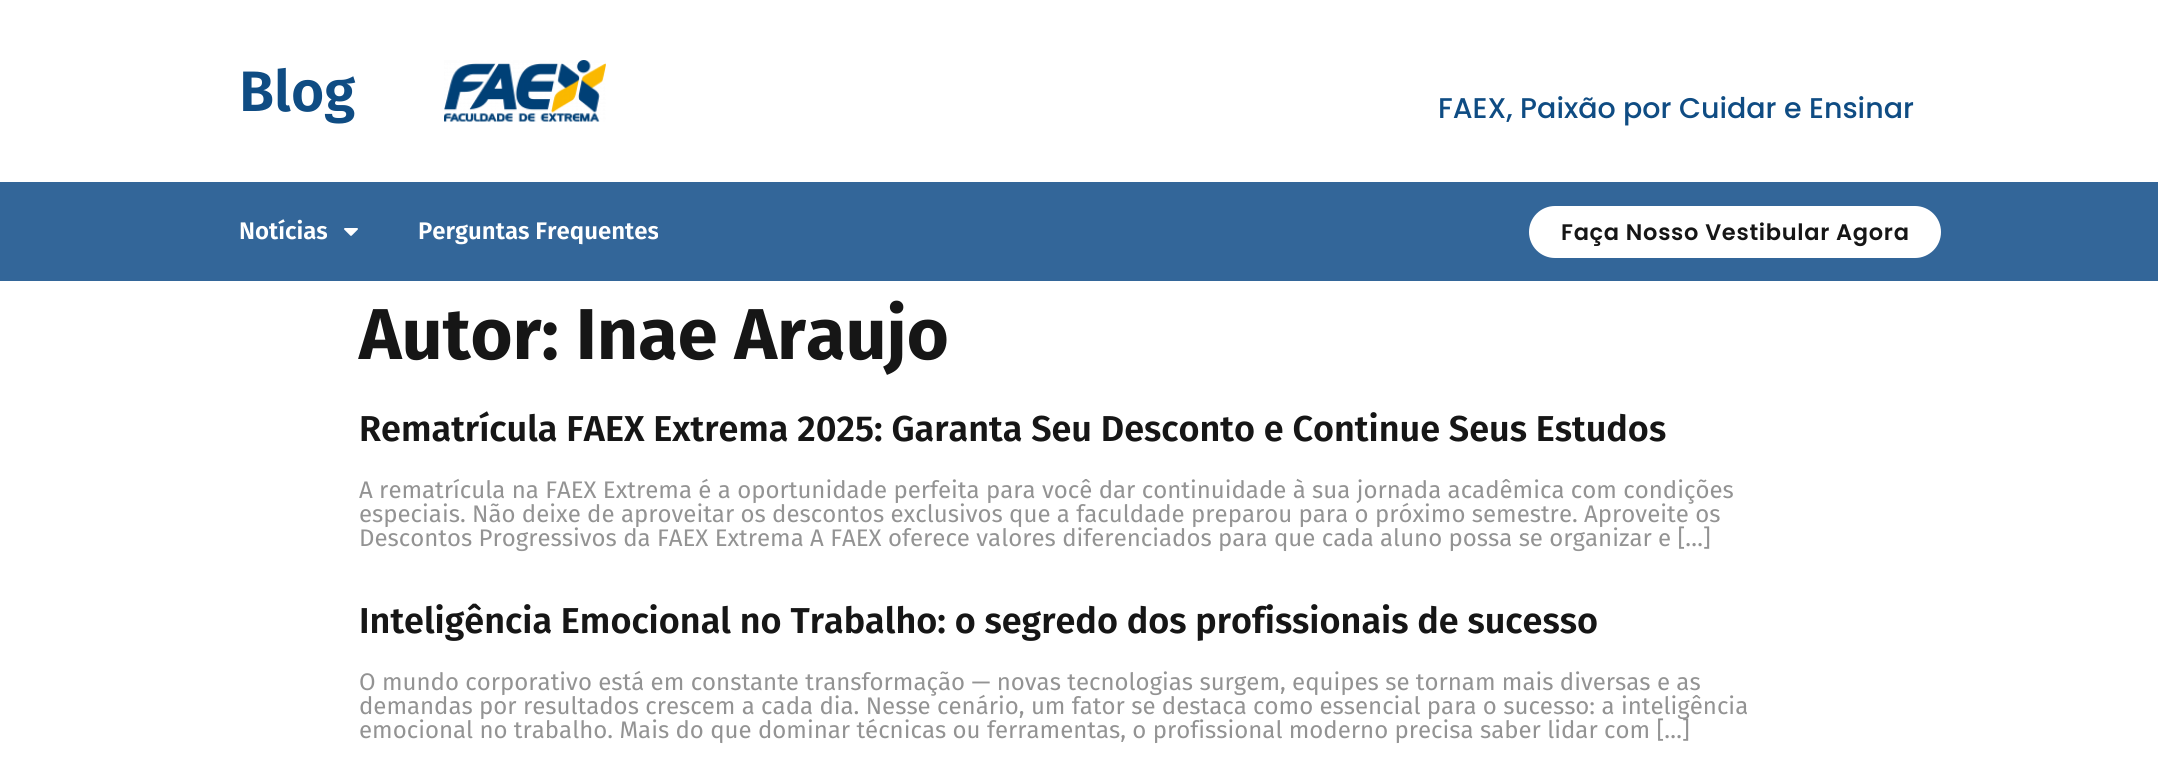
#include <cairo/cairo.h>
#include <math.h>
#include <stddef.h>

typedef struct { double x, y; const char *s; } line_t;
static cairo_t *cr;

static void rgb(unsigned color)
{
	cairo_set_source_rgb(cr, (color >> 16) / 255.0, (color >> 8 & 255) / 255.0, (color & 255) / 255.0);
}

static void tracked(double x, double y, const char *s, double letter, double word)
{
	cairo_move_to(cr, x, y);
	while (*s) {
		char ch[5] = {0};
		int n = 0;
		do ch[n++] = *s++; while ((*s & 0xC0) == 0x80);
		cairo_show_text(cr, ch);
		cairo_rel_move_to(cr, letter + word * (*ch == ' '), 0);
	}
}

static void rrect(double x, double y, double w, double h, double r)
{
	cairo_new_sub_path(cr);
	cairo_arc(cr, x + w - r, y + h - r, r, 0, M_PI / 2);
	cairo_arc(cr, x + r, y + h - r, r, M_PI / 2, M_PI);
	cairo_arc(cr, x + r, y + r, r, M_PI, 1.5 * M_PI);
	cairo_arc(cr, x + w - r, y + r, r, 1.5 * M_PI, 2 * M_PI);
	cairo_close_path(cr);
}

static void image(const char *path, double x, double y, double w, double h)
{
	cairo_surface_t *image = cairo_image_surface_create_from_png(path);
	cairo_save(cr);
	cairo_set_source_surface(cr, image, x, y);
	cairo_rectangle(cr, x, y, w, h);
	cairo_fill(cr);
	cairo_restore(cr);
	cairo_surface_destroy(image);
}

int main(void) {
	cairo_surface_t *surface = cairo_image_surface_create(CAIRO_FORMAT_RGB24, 2158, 770);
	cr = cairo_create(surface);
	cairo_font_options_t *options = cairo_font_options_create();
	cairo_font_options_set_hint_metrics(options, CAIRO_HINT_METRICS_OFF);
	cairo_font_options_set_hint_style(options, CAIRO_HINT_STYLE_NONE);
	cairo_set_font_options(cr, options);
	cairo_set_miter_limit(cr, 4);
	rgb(0xffffff);
	cairo_paint(cr);
	image("img/1.png", 444, 60, 162, 62);
	rgb(0x336699);
	cairo_rectangle(cr, 0, 182, 2158, 99);
	cairo_fill(cr);
	image("img/2.png", 344, 228, 14, 8);
	rgb(0xffffff);
	rrect(1529, 206, 412, 52, 26);
	cairo_fill(cr);
	cairo_select_font_face(cr, "Fira Sans SemiBold", CAIRO_FONT_SLANT_NORMAL, CAIRO_FONT_WEIGHT_NORMAL);
	cairo_set_font_size(cr, 57);
	rgb(0x0f4c83);
	cairo_move_to(cr, 239, 111);
	cairo_show_text(cr, "Blog");
	cairo_select_font_face(cr, "Poppins Medium", CAIRO_FONT_SLANT_NORMAL, CAIRO_FONT_WEIGHT_NORMAL);
	cairo_set_font_size(cr, 28.5);
	cairo_move_to(cr, 1438, 118);
	cairo_show_text(cr, "FAEX, Paixão por Cuidar e Ensinar");
	cairo_select_font_face(cr, "Fira Sans SemiBold", CAIRO_FONT_SLANT_NORMAL, CAIRO_FONT_WEIGHT_NORMAL);
	cairo_set_font_size(cr, 24);
	rgb(0xffffff);
	cairo_move_to(cr, 239, 239);
	cairo_show_text(cr, "Notícias");
	cairo_move_to(cr, 418, 239);
	cairo_show_text(cr, "Perguntas Frequentes");
	cairo_select_font_face(cr, "Poppins SemiBold", CAIRO_FONT_SLANT_NORMAL, CAIRO_FONT_WEIGHT_NORMAL);
	cairo_set_font_size(cr, 22.5);
	rgb(0x161616);
	tracked(1561, 240, "Faça Nosso Vestibular Agora", 0.7, 0);
	cairo_select_font_face(cr, "Fira Sans", CAIRO_FONT_SLANT_NORMAL, CAIRO_FONT_WEIGHT_BOLD);
	cairo_set_font_size(cr, 72);
	cairo_move_to(cr, 359, 359);
	cairo_show_text(cr, "Autor: Inae Araujo");
	cairo_select_font_face(cr, "Fira Sans SemiBold", CAIRO_FONT_SLANT_NORMAL, CAIRO_FONT_WEIGHT_NORMAL);
	cairo_set_font_size(cr, 36);
	cairo_move_to(cr, 359, 441);
	cairo_show_text(cr, "Rematrícula FAEX Extrema 2025: Garanta Seu Desconto e Continue Seus Estudos");
	cairo_select_font_face(cr, "Fira Sans", CAIRO_FONT_SLANT_NORMAL, CAIRO_FONT_WEIGHT_NORMAL);
	cairo_set_font_size(cr, 24);
	rgb(0x939393);
	{
		static const line_t items[] = {
			{359, 498, "A rematrícula na FAEX Extrema é a oportunidade perfeita para você dar continuidade à sua jornada acadêmica com condições"},
			{359, 522, "especiais. Não deixe de aproveitar os descontos exclusivos que a faculdade preparou para o próximo semestre. Aproveite os"},
			{359, 546, "Descontos Progressivos da FAEX Extrema A FAEX oferece valores diferenciados para que cada aluno possa se organizar e […]"},
		};
		for (size_t i = 0; i < sizeof items / sizeof *items; i++) {
			cairo_move_to(cr, items[i].x, items[i].y);
			cairo_show_text(cr, items[i].s);
		}
	}
	cairo_select_font_face(cr, "Fira Sans SemiBold", CAIRO_FONT_SLANT_NORMAL, CAIRO_FONT_WEIGHT_NORMAL);
	cairo_set_font_size(cr, 36);
	rgb(0x161616);
	cairo_move_to(cr, 359, 633);
	cairo_show_text(cr, "Inteligência Emocional no Trabalho: o segredo dos profissionais de sucesso");
	cairo_select_font_face(cr, "Fira Sans", CAIRO_FONT_SLANT_NORMAL, CAIRO_FONT_WEIGHT_NORMAL);
	cairo_set_font_size(cr, 24);
	rgb(0x939393);
	{
		static const line_t items[] = {
			{359, 690, "O mundo corporativo está em constante transformação — novas tecnologias surgem, equipes se tornam mais diversas e as"},
			{359, 714, "demandas por resultados crescem a cada dia. Nesse cenário, um fator se destaca como essencial para o sucesso: a inteligência"},
			{359, 738, "emocional no trabalho. Mais do que dominar técnicas ou ferramentas, o profissional moderno precisa saber lidar com […]"},
		};
		for (size_t i = 0; i < sizeof items / sizeof *items; i++) {
			cairo_move_to(cr, items[i].x, items[i].y);
			cairo_show_text(cr, items[i].s);
		}
	}
	cairo_surface_write_to_png(surface, "page.png");
	cairo_font_options_destroy(options);
	cairo_destroy(cr);
	cairo_surface_destroy(surface);
	return 0;
}
